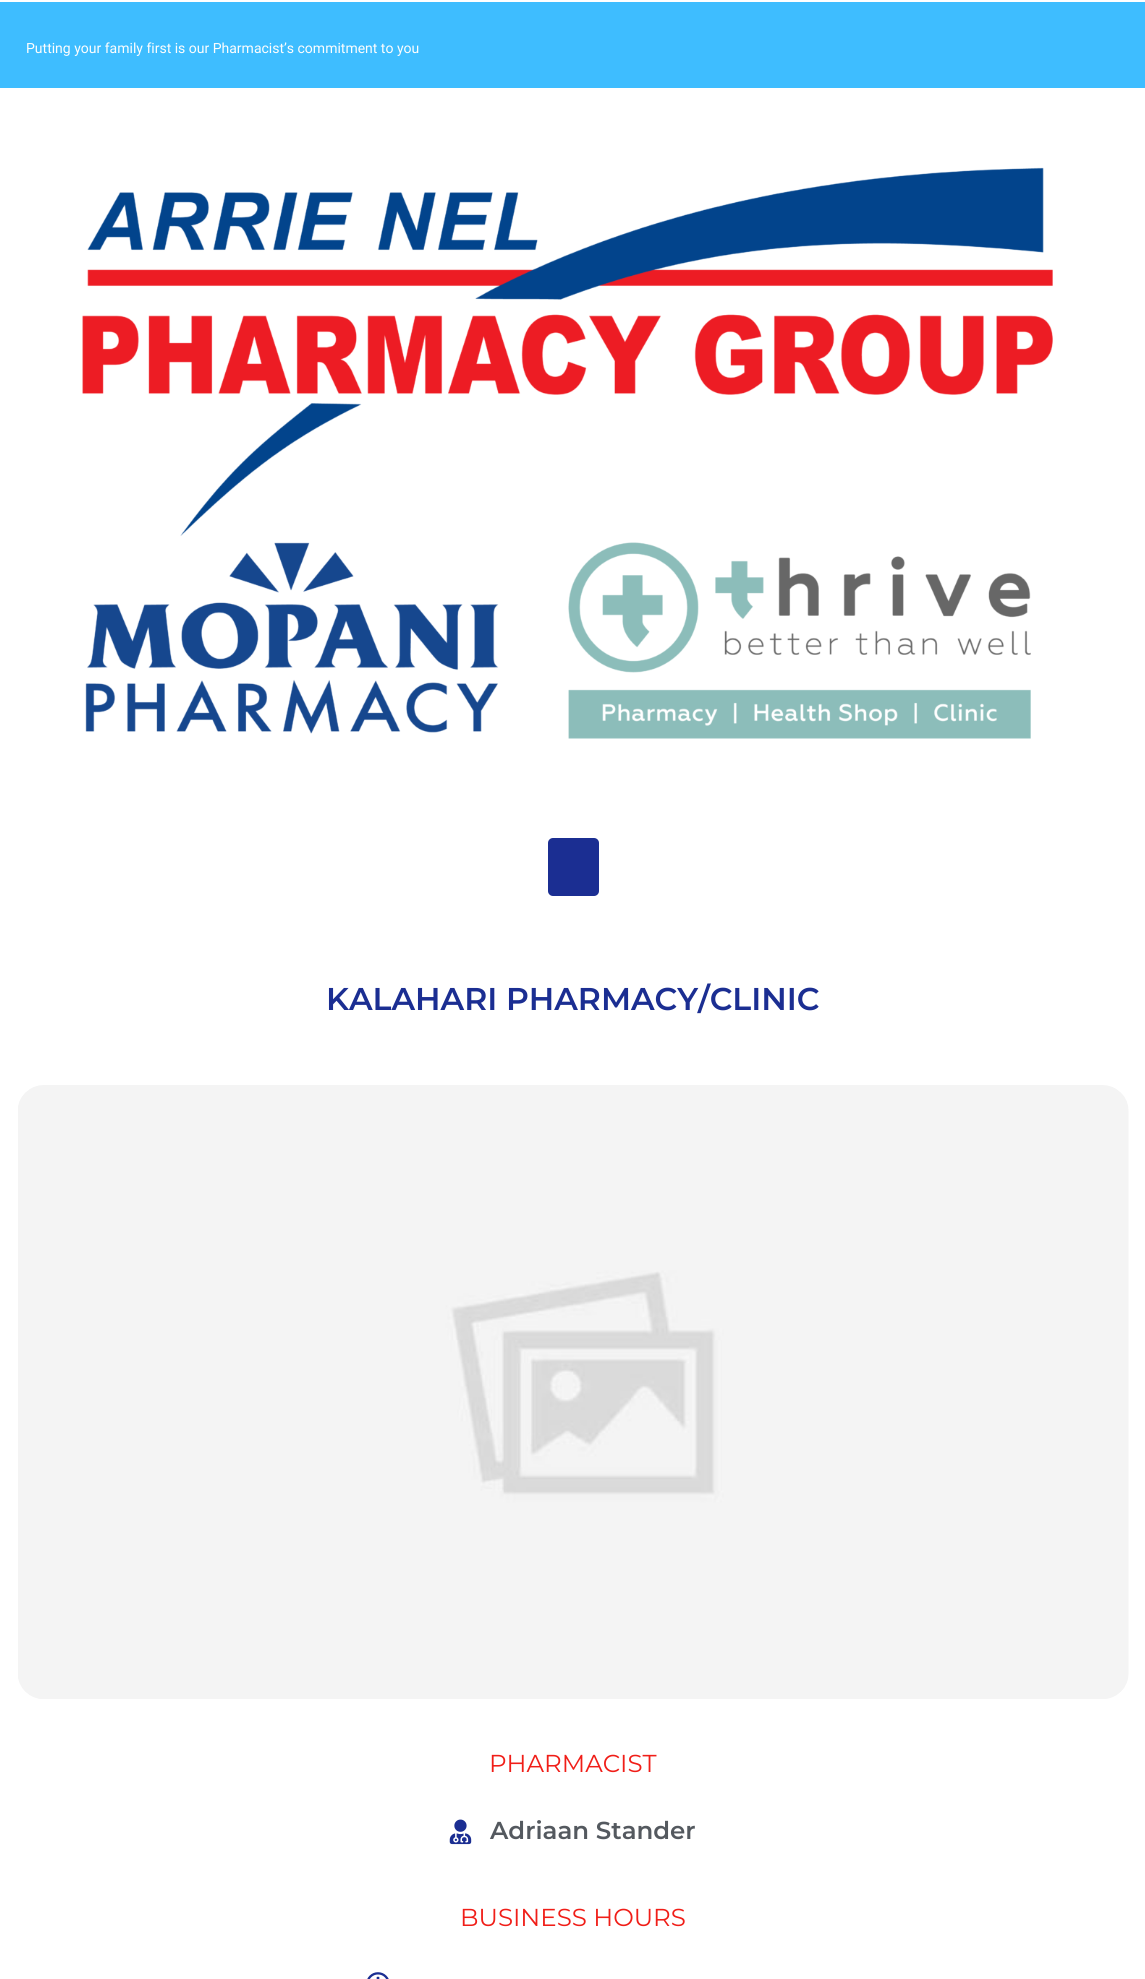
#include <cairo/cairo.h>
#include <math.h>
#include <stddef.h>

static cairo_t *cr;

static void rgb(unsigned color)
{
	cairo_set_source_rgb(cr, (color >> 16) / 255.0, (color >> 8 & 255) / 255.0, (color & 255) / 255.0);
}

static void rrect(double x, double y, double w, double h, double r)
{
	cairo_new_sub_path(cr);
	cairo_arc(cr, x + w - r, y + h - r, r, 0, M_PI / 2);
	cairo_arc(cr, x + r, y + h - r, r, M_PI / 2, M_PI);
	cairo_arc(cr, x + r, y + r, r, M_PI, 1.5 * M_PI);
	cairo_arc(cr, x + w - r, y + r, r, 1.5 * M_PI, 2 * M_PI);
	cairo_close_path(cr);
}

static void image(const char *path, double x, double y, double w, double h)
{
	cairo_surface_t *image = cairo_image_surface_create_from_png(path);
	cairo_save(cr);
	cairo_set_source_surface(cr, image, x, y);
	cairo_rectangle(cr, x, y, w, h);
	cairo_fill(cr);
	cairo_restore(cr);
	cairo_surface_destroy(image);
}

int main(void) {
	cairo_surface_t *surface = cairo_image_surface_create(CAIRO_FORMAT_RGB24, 1145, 1979);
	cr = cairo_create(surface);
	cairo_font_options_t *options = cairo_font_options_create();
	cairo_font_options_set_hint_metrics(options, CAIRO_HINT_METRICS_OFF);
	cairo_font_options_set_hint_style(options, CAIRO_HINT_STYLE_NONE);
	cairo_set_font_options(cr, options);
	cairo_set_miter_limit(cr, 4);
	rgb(0xffffff);
	cairo_paint(cr);
	rgb(0x3ebdff);
	cairo_rectangle(cr, 0, 2, 1145, 86);
	cairo_fill(cr);
	image("img/1.png", 82, 167, 971, 572);
	rgb(0x1b2e92);
	rrect(548, 838, 51, 58, 5);
	cairo_fill(cr);
	image("img/2.png", 18, 1085, 1111, 614);
	image("img/3.png", 449, 1819, 23, 26);
	image("img/4.png", 367, 1972, 22, 7);
	cairo_select_font_face(cr, "Roboto", CAIRO_FONT_SLANT_NORMAL, CAIRO_FONT_WEIGHT_NORMAL);
	cairo_set_font_size(cr, 14);
	rgb(0xfdfdfd);
	cairo_move_to(cr, 26, 53);
	cairo_show_text(cr, "Putting your family first is our Pharmacist’s commitment to you");
	cairo_select_font_face(cr, "Montserrat SemiBold", CAIRO_FONT_SLANT_NORMAL, CAIRO_FONT_WEIGHT_NORMAL);
	cairo_set_font_size(cr, 31.5);
	rgb(0x1b2e92);
	cairo_move_to(cr, 326, 1010);
	cairo_show_text(cr, "KALAHARI PHARMACY/CLINIC");
	cairo_select_font_face(cr, "Montserrat", CAIRO_FONT_SLANT_NORMAL, CAIRO_FONT_WEIGHT_NORMAL);
	cairo_set_font_size(cr, 24.5);
	rgb(0xf01e18);
	cairo_move_to(cr, 489, 1772);
	cairo_show_text(cr, "PHARMACIST");
	cairo_select_font_face(cr, "Montserrat SemiBold", CAIRO_FONT_SLANT_NORMAL, CAIRO_FONT_WEIGHT_NORMAL);
	rgb(0x54595f);
	cairo_move_to(cr, 490, 1839);
	cairo_show_text(cr, "Adriaan Stander");
	cairo_select_font_face(cr, "Montserrat", CAIRO_FONT_SLANT_NORMAL, CAIRO_FONT_WEIGHT_NORMAL);
	rgb(0xf01e18);
	cairo_move_to(cr, 460, 1926);
	cairo_show_text(cr, "BUSINESS HOURS");
	cairo_surface_write_to_png(surface, "page.png");
	cairo_font_options_destroy(options);
	cairo_destroy(cr);
	cairo_surface_destroy(surface);
	return 0;
}
